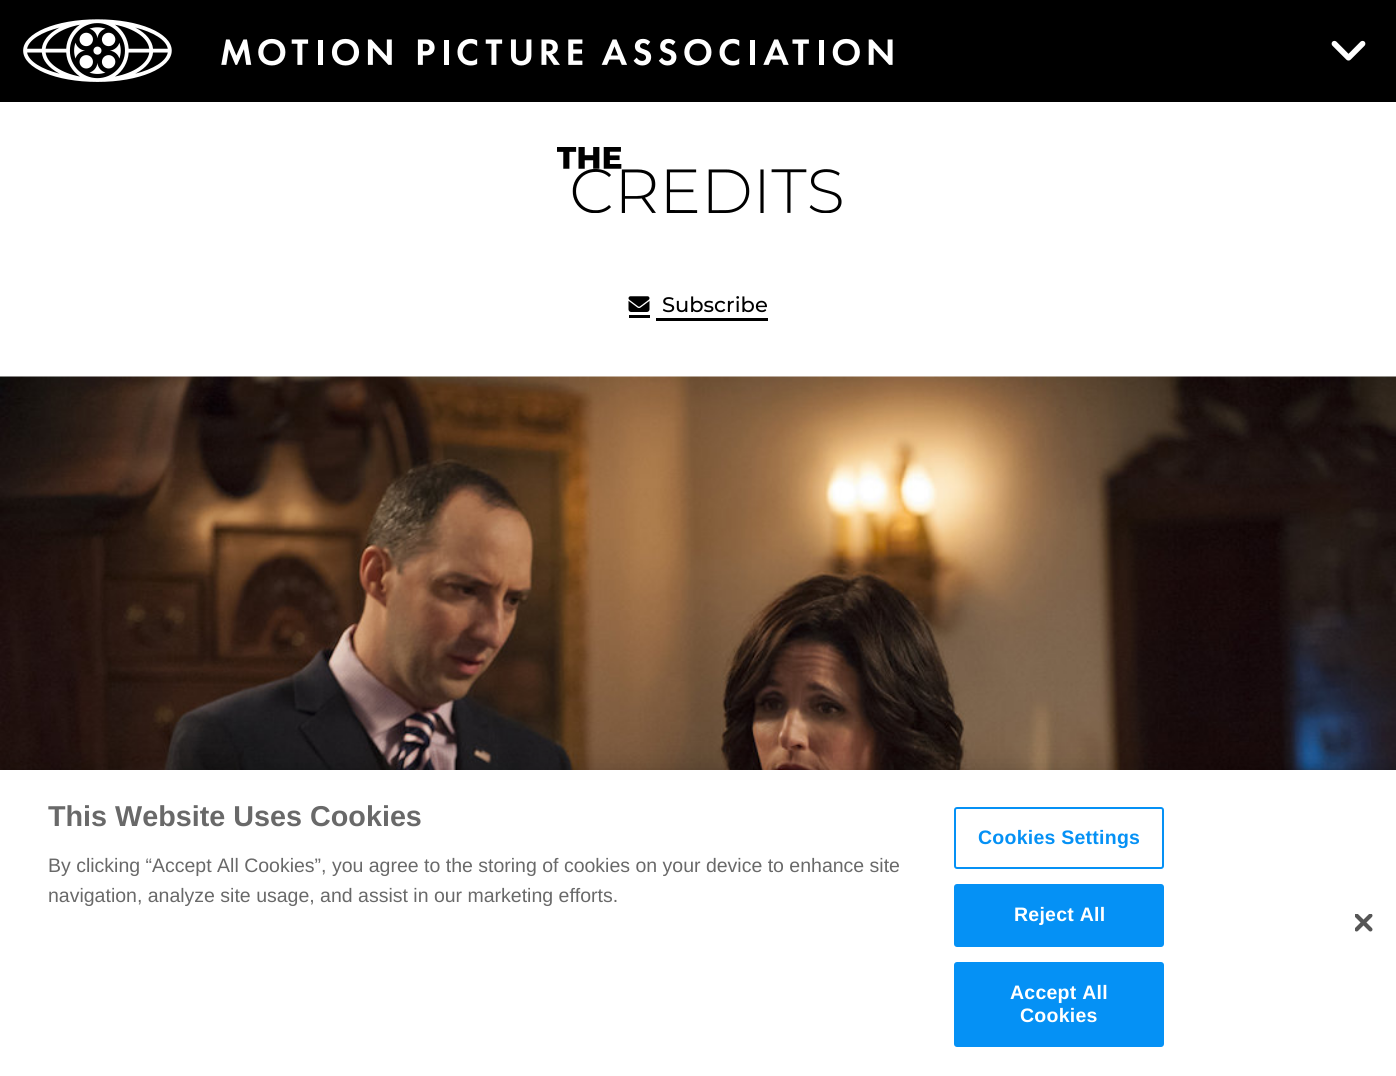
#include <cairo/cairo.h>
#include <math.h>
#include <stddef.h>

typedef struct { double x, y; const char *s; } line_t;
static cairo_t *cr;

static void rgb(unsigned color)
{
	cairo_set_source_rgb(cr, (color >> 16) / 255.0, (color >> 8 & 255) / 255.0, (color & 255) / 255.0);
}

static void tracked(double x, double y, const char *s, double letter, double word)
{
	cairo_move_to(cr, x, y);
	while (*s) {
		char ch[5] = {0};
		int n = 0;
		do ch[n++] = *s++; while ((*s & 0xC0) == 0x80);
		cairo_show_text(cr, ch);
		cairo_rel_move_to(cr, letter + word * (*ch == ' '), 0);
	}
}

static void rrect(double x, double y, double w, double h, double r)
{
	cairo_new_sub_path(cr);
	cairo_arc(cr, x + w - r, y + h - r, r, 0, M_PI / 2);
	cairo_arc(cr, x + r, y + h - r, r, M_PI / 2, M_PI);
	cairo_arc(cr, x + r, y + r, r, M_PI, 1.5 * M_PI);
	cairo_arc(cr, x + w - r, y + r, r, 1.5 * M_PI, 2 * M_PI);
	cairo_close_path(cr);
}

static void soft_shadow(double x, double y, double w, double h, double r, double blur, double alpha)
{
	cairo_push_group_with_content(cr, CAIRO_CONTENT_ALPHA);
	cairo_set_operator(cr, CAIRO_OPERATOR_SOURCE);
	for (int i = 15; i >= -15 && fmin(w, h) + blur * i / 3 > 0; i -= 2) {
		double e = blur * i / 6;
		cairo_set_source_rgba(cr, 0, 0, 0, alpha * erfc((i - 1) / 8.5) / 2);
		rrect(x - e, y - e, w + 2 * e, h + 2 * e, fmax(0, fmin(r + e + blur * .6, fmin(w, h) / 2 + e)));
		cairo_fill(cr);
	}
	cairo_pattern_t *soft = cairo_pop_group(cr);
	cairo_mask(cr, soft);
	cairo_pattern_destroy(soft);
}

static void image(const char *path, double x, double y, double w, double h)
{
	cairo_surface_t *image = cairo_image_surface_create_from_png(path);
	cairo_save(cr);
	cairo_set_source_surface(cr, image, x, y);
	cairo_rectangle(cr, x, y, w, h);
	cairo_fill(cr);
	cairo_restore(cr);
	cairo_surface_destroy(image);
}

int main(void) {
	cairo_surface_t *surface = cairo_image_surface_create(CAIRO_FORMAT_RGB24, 1396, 1076);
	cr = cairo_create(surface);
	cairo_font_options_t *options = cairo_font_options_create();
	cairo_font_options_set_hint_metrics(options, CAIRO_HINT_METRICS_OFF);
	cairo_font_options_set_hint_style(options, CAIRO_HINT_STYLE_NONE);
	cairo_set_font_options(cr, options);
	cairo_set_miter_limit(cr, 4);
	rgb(0xffffff);
	cairo_paint(cr);
	rgb(0x000000);
	cairo_rectangle(cr, 0, 0, 1396, 102);
	cairo_fill(cr);
	image("img/1.png", 23, 19, 870, 63);
	image("img/2.png", 1331, 40, 35, 21);
	image("img/3.png", 557, 147, 285, 66);
	cairo_rectangle(cr, 629, 315, 21, 3);
	cairo_fill(cr);
	cairo_rectangle(cr, 656, 318, 112, 3);
	cairo_fill(cr);
	image("img/4.png", 628, 296, 22, 16);
	image("img/5.png", 0, 376, 1396, 394);
	rgb(0x000000);
	soft_shadow(0, 770, 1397, 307, 0, 13.5, 0.2);
	rgb(0xffffff);
	cairo_rectangle(cr, 0, 770, 1396, 306);
	cairo_fill(cr);
	rrect(955, 808, 208, 60, 2);
	rgb(0x0591f5);
	cairo_stroke(cr);
	rrect(955, 885, 208, 61, 2);
	cairo_fill_preserve(cr);
	cairo_stroke(cr);
	rrect(955, 963, 208, 83, 2);
	cairo_fill_preserve(cr);
	cairo_stroke(cr);
	image("img/6.png", 1355, 914, 18, 18);
	cairo_select_font_face(cr, "Montserrat Medium", CAIRO_FONT_SLANT_NORMAL, CAIRO_FONT_WEIGHT_NORMAL);
	cairo_set_font_size(cr, 21);
	rgb(0x000000);
	cairo_move_to(cr, 662, 312);
	cairo_show_text(cr, "Subscribe");
	cairo_select_font_face(cr, "Liberation Sans", CAIRO_FONT_SLANT_NORMAL, CAIRO_FONT_WEIGHT_BOLD);
	cairo_set_font_size(cr, 28.75);
	rgb(0x696969);
	cairo_move_to(cr, 48, 826);
	cairo_show_text(cr, "This Website Uses Cookies");
	cairo_select_font_face(cr, "Liberation Sans", CAIRO_FONT_SLANT_NORMAL, CAIRO_FONT_WEIGHT_NORMAL);
	cairo_set_font_size(cr, 19.5);
	cairo_move_to(cr, 48, 872);
	cairo_show_text(cr, "By clicking “Accept All Cookies”, you agree to the storing of cookies on your device to enhance site");
	cairo_move_to(cr, 48, 902);
	cairo_show_text(cr, "navigation, analyze site usage, and assist in our marketing efforts.");
	cairo_select_font_face(cr, "Liberation Sans", CAIRO_FONT_SLANT_NORMAL, CAIRO_FONT_WEIGHT_BOLD);
	rgb(0x0591f5);
	tracked(978, 844, "Cookies Settings", 0.25, 0);
	rgb(0xffffff);
	{
		static const line_t items[] = {
			{1014, 921, "Reject All"},
			{1010, 999, "Accept All"},
			{1020, 1022, "Cookies"},
		};
		for (size_t i = 0; i < sizeof items / sizeof *items; i++) {
			tracked(items[i].x, items[i].y, items[i].s, 0.25, 0);
		}
	}
	cairo_surface_write_to_png(surface, "page.png");
	cairo_font_options_destroy(options);
	cairo_destroy(cr);
	cairo_surface_destroy(surface);
	return 0;
}
